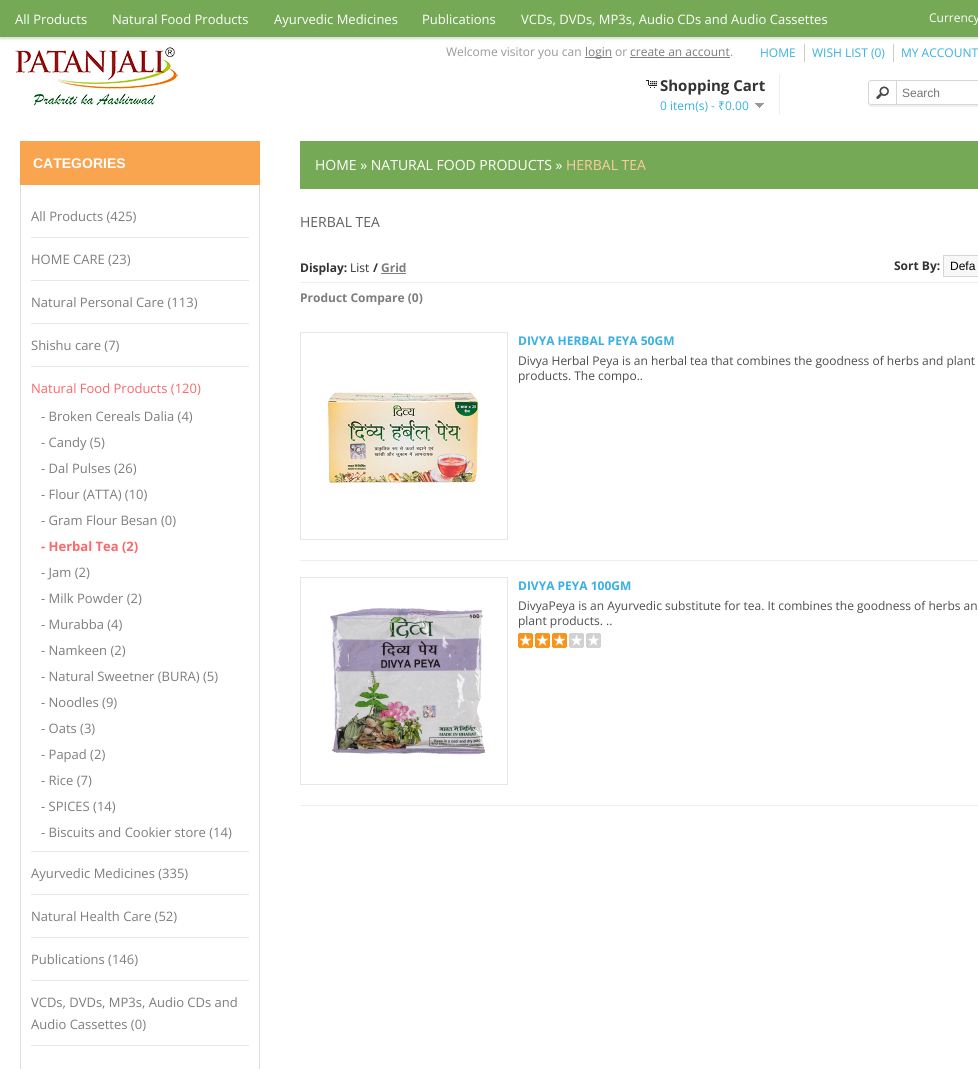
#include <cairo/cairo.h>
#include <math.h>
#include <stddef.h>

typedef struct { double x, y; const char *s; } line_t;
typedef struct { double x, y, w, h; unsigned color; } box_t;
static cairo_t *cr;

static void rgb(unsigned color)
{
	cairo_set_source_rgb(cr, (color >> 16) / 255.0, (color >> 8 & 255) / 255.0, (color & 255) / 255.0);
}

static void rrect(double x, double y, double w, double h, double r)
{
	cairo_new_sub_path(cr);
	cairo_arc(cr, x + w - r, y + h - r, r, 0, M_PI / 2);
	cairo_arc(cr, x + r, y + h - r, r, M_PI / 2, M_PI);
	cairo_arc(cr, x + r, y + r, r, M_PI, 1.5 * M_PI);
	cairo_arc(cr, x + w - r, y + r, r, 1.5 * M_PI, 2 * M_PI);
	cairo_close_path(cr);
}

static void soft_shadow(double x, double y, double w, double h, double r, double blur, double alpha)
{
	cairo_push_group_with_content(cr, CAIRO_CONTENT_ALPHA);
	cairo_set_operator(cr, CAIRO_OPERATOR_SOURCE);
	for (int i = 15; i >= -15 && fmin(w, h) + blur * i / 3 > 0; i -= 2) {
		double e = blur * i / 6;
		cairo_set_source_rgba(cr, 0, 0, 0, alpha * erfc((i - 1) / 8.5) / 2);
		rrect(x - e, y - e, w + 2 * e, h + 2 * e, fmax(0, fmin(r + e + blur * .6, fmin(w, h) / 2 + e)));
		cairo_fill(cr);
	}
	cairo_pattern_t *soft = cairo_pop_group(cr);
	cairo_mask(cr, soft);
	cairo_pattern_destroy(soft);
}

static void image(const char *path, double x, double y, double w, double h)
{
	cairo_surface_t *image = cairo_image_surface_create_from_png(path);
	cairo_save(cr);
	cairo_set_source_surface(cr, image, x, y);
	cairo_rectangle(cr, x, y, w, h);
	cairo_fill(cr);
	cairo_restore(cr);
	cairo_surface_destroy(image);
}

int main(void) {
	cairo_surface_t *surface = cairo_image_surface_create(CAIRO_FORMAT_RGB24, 978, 1069);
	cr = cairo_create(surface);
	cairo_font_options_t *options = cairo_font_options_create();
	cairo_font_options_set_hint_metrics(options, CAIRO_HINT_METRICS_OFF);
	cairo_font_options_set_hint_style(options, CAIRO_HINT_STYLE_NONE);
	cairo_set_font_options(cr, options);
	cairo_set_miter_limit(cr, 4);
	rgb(0xffffff);
	cairo_paint(cr);
	rgb(0xdddddd);
	soft_shadow(0, 2, 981, 37, 0, 1, 1);
	rgb(0x76a956);
	cairo_rectangle(cr, 0, 0, 978, 37);
	cairo_fill(cr);
	image("img/1.png", 15, 47, 163, 59);
	{
		static const box_t items[] = {
			{585, 57, 27, 1, 0x7d7d7d},
			{630, 57, 100, 1, 0x7d7d7d},
			{804, 44, 1, 18, 0xcccccc},
			{893, 44, 1, 18, 0xcccccc},
			{779, 74, 1, 41, 0xeeeeee},
		};
		for (size_t i = 0; i < sizeof items / sizeof *items; i++) {
			rgb(items[i].color);
			cairo_rectangle(cr, items[i].x, items[i].y, items[i].w, items[i].h);
			cairo_fill(cr);
		}
	}
	image("img/2.png", 646, 80, 11, 8);
	image("img/3.png", 755, 103, 9, 5);
	rgb(0xf0f0f0);
	cairo_new_path(cr);
	cairo_move_to(cr, 868, 102);
	cairo_curve_to(cr, 868, 104, 868, 107, 871, 107);
	cairo_line_to(cr, 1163, 107);
	cairo_curve_to(cr, 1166, 107, 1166, 104, 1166, 102);
	cairo_curve_to(cr, 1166, 104, 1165, 105, 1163, 105);
	cairo_line_to(cr, 871, 105);
	cairo_curve_to(cr, 869, 105, 868, 104, 868, 102);
	cairo_close_path(cr);
	cairo_fill(cr);
	rrect(868.5, 80.5, 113, 24, 2.5);
	rgb(0xd7d7d7);
	cairo_set_line_width(cr, 1);
	cairo_stroke(cr);
	image("img/4.png", 876, 86, 13, 13);
	cairo_rectangle(cr, 896, 80, 1, 24);
	cairo_fill(cr);
	rgb(0xf9a44f);
	cairo_rectangle(cr, 20, 141, 240, 44);
	cairo_fill(cr);
	rgb(0xdbdee1);
	cairo_set_fill_rule(cr, CAIRO_FILL_RULE_EVEN_ODD);
	cairo_new_path(cr);
	cairo_move_to(cr, 20, 185);
	cairo_line_to(cr, 260, 185);
	cairo_line_to(cr, 260, 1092);
	cairo_curve_to(cr, 260, 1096, 257, 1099, 253, 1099);
	cairo_line_to(cr, 27, 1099);
	cairo_curve_to(cr, 23, 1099, 20, 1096, 20, 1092);
	cairo_close_path(cr);
	cairo_move_to(cr, 21, 185);
	cairo_line_to(cr, 259, 185);
	cairo_line_to(cr, 259, 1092);
	cairo_curve_to(cr, 259, 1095, 256, 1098, 253, 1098);
	cairo_line_to(cr, 27, 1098);
	cairo_curve_to(cr, 24, 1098, 21, 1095, 21, 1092);
	cairo_close_path(cr);
	cairo_fill(cr);
	{
		static const box_t items[] = {
			{31, 237, 218, 1, 0xe7e7e7},
			{31, 280, 218, 1, 0xe7e7e7},
			{31, 323, 218, 1, 0xe7e7e7},
			{31, 366, 218, 1, 0xe7e7e7},
			{31, 851, 218, 1, 0xe7e7e7},
			{31, 894, 218, 1, 0xe7e7e7},
			{31, 937, 218, 1, 0xe7e7e7},
			{31, 980, 218, 1, 0xe7e7e7},
			{31, 1045, 218, 1, 0xe7e7e7},
			{300, 141, 678, 48, 0x76a956},
			{300, 282, 678, 1, 0xeeeeee},
			{381, 273, 25, 1, 0x7d7d7d},
		};
		for (size_t i = 0; i < sizeof items / sizeof *items; i++) {
			rgb(items[i].color);
			cairo_rectangle(cr, items[i].x, items[i].y, items[i].w, items[i].h);
			cairo_fill(cr);
		}
	}
	rgb(0xf8f8f8);
	cairo_rectangle(cr, 943.5, 255.5, 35, 21);
	cairo_fill_preserve(cr);
	rgb(0xd7d7d7);
	cairo_stroke(cr);
	cairo_rectangle(cr, 300.5, 332.5, 207, 207);
	rgb(0xe7e7e7);
	cairo_stroke(cr);
	image("img/5.png", 328, 392, 151, 91);
	rgb(0xeeeeee);
	cairo_rectangle(cr, 300, 560, 678, 1);
	cairo_fill(cr);
	cairo_rectangle(cr, 300.5, 577.5, 207, 207);
	rgb(0xe7e7e7);
	cairo_stroke(cr);
	image("img/6.png", 330, 608, 155, 147);
	image("img/7.png", 518, 633, 83, 15);
	rgb(0xeeeeee);
	cairo_rectangle(cr, 300, 805, 678, 1);
	cairo_fill(cr);
	cairo_select_font_face(cr, "Open Sans", CAIRO_FONT_SLANT_NORMAL, CAIRO_FONT_WEIGHT_NORMAL);
	cairo_set_font_size(cr, 13);
	rgb(0xffffff);
	{
		static const line_t items[] = {
			{15, 24, "All Products"},
			{112, 24, "Natural Food Products"},
			{274, 24, "Ayurvedic Medicines"},
			{422, 24, "Publications"},
			{521, 24, "VCDs, DVDs, MP3s, Audio CDs and Audio Cassettes"},
		};
		for (size_t i = 0; i < sizeof items / sizeof *items; i++) {
			cairo_move_to(cr, items[i].x, items[i].y);
			cairo_show_text(cr, items[i].s);
		}
	}
	cairo_set_font_size(cr, 12);
	cairo_move_to(cr, 929, 22);
	cairo_show_text(cr, "Currency");
	rgb(0x999999);
	cairo_move_to(cr, 446, 56);
	cairo_show_text(cr, "Welcome visitor you can");
	rgb(0x7d7d7d);
	cairo_move_to(cr, 585, 56);
	cairo_show_text(cr, "login");
	rgb(0x999999);
	cairo_move_to(cr, 615, 56);
	cairo_show_text(cr, "or");
	rgb(0x7d7d7d);
	cairo_move_to(cr, 630, 56);
	cairo_show_text(cr, "create an account");
	rgb(0x999999);
	cairo_move_to(cr, 730, 56);
	cairo_show_text(cr, ".");
	rgb(0x38b0e3);
	{
		static const line_t items[] = {
			{760, 57, "HOME"},
			{812, 57, "WISH LIST (0)"},
			{901, 57, "MY ACCOUNT"},
		};
		for (size_t i = 0; i < sizeof items / sizeof *items; i++) {
			cairo_move_to(cr, items[i].x, items[i].y);
			cairo_show_text(cr, items[i].s);
		}
	}
	cairo_select_font_face(cr, "Open Sans", CAIRO_FONT_SLANT_NORMAL, CAIRO_FONT_WEIGHT_BOLD);
	cairo_set_font_size(cr, 15);
	rgb(0x333333);
	cairo_move_to(cr, 660, 91);
	cairo_show_text(cr, "Shopping Cart");
	cairo_select_font_face(cr, "Open Sans", CAIRO_FONT_SLANT_NORMAL, CAIRO_FONT_WEIGHT_NORMAL);
	cairo_set_font_size(cr, 12);
	rgb(0x38b0e3);
	cairo_move_to(cr, 660, 110);
	cairo_show_text(cr, "0 item(s) -");
	cairo_select_font_face(cr, "Noto Sans", CAIRO_FONT_SLANT_NORMAL, CAIRO_FONT_WEIGHT_NORMAL);
	cairo_move_to(cr, 718, 110);
	cairo_show_text(cr, "₹");
	cairo_select_font_face(cr, "Open Sans", CAIRO_FONT_SLANT_NORMAL, CAIRO_FONT_WEIGHT_NORMAL);
	cairo_move_to(cr, 725, 110);
	cairo_show_text(cr, "0.00");
	cairo_select_font_face(cr, "Liberation Sans", CAIRO_FONT_SLANT_NORMAL, CAIRO_FONT_WEIGHT_NORMAL);
	rgb(0x757575);
	cairo_move_to(cr, 902, 97);
	cairo_show_text(cr, "Search");
	cairo_select_font_face(cr, "Liberation Sans", CAIRO_FONT_SLANT_NORMAL, CAIRO_FONT_WEIGHT_BOLD);
	cairo_set_font_size(cr, 14);
	rgb(0xffffff);
	cairo_move_to(cr, 33, 168);
	cairo_show_text(cr, "CATEGORIES");
	cairo_select_font_face(cr, "Open Sans", CAIRO_FONT_SLANT_NORMAL, CAIRO_FONT_WEIGHT_NORMAL);
	cairo_set_font_size(cr, 13);
	rgb(0x7d7d7d);
	{
		static const line_t items[] = {
			{31, 221, "All Products (425)"},
			{31, 264, "HOME CARE (23)"},
			{31, 307, "Natural Personal Care (113)"},
			{31, 350, "Shishu care (7)"},
		};
		for (size_t i = 0; i < sizeof items / sizeof *items; i++) {
			cairo_move_to(cr, items[i].x, items[i].y);
			cairo_show_text(cr, items[i].s);
		}
	}
	rgb(0xff676b);
	cairo_move_to(cr, 31, 393);
	cairo_show_text(cr, "Natural Food Products (120)");
	rgb(0x7d7d7d);
	{
		static const line_t items[] = {
			{41, 421, "- Broken Cereals Dalia (4)"},
			{41, 447, "- Candy (5)"},
			{41, 473, "- Dal Pulses (26)"},
			{41, 499, "- Flour (ATTA) (10)"},
			{41, 525, "- Gram Flour Besan (0)"},
		};
		for (size_t i = 0; i < sizeof items / sizeof *items; i++) {
			cairo_move_to(cr, items[i].x, items[i].y);
			cairo_show_text(cr, items[i].s);
		}
	}
	cairo_select_font_face(cr, "Open Sans", CAIRO_FONT_SLANT_NORMAL, CAIRO_FONT_WEIGHT_BOLD);
	rgb(0xff676b);
	cairo_move_to(cr, 41, 551);
	cairo_show_text(cr, "- Herbal Tea (2)");
	cairo_select_font_face(cr, "Open Sans", CAIRO_FONT_SLANT_NORMAL, CAIRO_FONT_WEIGHT_NORMAL);
	rgb(0x7d7d7d);
	{
		static const line_t items[] = {
			{41, 577, "- Jam (2)"},
			{41, 603, "- Milk Powder (2)"},
			{41, 629, "- Murabba (4)"},
			{41, 655, "- Namkeen (2)"},
			{41, 681, "- Natural Sweetner (BURA) (5)"},
			{41, 707, "- Noodles (9)"},
			{41, 733, "- Oats (3)"},
			{41, 759, "- Papad (2)"},
			{41, 785, "- Rice (7)"},
			{41, 811, "- SPICES (14)"},
			{41, 837, "- Biscuits and Cookier store (14)"},
			{31, 878, "Ayurvedic Medicines (335)"},
			{31, 921, "Natural Health Care (52)"},
			{31, 964, "Publications (146)"},
			{31, 1007, "VCDs, DVDs, MP3s, Audio CDs and"},
			{31, 1029, "Audio Cassettes (0)"},
		};
		for (size_t i = 0; i < sizeof items / sizeof *items; i++) {
			cairo_move_to(cr, items[i].x, items[i].y);
			cairo_show_text(cr, items[i].s);
		}
	}
	cairo_set_font_size(cr, 14);
	rgb(0xffffff);
	cairo_move_to(cr, 315, 170);
	cairo_show_text(cr, "HOME » NATURAL FOOD PRODUCTS »");
	rgb(0xfacda1);
	cairo_move_to(cr, 566, 170);
	cairo_show_text(cr, "HERBAL TEA");
	rgb(0x5f5f5f);
	cairo_move_to(cr, 300, 227);
	cairo_show_text(cr, "HERBAL TEA");
	cairo_select_font_face(cr, "Open Sans", CAIRO_FONT_SLANT_NORMAL, CAIRO_FONT_WEIGHT_BOLD);
	cairo_set_font_size(cr, 12);
	rgb(0x333333);
	cairo_move_to(cr, 300, 272);
	cairo_show_text(cr, "Display:");
	cairo_select_font_face(cr, "Open Sans", CAIRO_FONT_SLANT_NORMAL, CAIRO_FONT_WEIGHT_NORMAL);
	cairo_move_to(cr, 350, 272);
	cairo_show_text(cr, "List");
	cairo_select_font_face(cr, "Open Sans", CAIRO_FONT_SLANT_NORMAL, CAIRO_FONT_WEIGHT_BOLD);
	cairo_move_to(cr, 373, 272);
	cairo_show_text(cr, "/");
	rgb(0x7d7d7d);
	cairo_move_to(cr, 381, 272);
	cairo_show_text(cr, "Grid");
	rgb(0x333333);
	cairo_move_to(cr, 894, 270);
	cairo_show_text(cr, "Sort By:");
	cairo_select_font_face(cr, "Liberation Sans", CAIRO_FONT_SLANT_NORMAL, CAIRO_FONT_WEIGHT_NORMAL);
	rgb(0x000000);
	cairo_move_to(cr, 950, 270);
	cairo_show_text(cr, "Defa");
	cairo_select_font_face(cr, "Open Sans", CAIRO_FONT_SLANT_NORMAL, CAIRO_FONT_WEIGHT_BOLD);
	rgb(0x7d7d7d);
	cairo_move_to(cr, 300, 302);
	cairo_show_text(cr, "Product Compare (0)");
	rgb(0x38b0e3);
	cairo_move_to(cr, 518, 345);
	cairo_show_text(cr, "DIVYA HERBAL PEYA 50GM");
	cairo_select_font_face(cr, "Open Sans", CAIRO_FONT_SLANT_NORMAL, CAIRO_FONT_WEIGHT_NORMAL);
	rgb(0x4d4d4d);
	cairo_move_to(cr, 518, 365);
	cairo_show_text(cr, "Divya Herbal Peya is an herbal tea that combines the goodness of herbs and plant");
	cairo_move_to(cr, 518, 380);
	cairo_show_text(cr, "products. The compo..");
	cairo_select_font_face(cr, "Open Sans", CAIRO_FONT_SLANT_NORMAL, CAIRO_FONT_WEIGHT_BOLD);
	rgb(0x38b0e3);
	cairo_move_to(cr, 518, 590);
	cairo_show_text(cr, "DIVYA PEYA 100GM");
	cairo_select_font_face(cr, "Open Sans", CAIRO_FONT_SLANT_NORMAL, CAIRO_FONT_WEIGHT_NORMAL);
	rgb(0x4d4d4d);
	cairo_move_to(cr, 518, 610);
	cairo_show_text(cr, "DivyaPeya is an Ayurvedic substitute for tea. It combines the goodness of herbs an");
	cairo_move_to(cr, 518, 625);
	cairo_show_text(cr, "plant products. ..");
	cairo_surface_write_to_png(surface, "page.png");
	cairo_font_options_destroy(options);
	cairo_destroy(cr);
	cairo_surface_destroy(surface);
	return 0;
}
